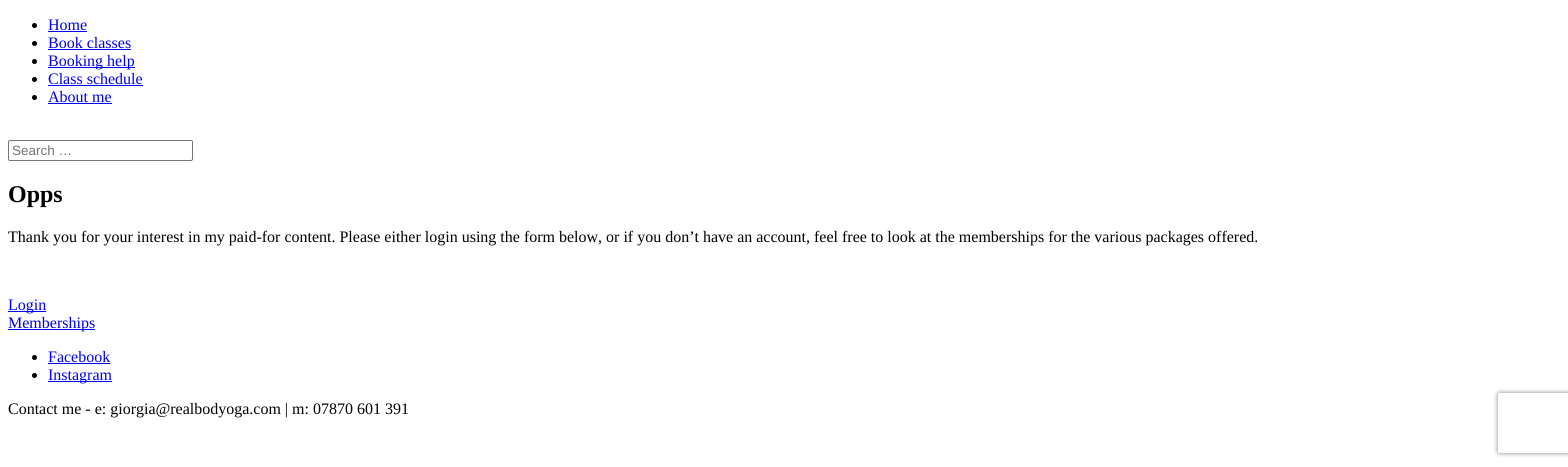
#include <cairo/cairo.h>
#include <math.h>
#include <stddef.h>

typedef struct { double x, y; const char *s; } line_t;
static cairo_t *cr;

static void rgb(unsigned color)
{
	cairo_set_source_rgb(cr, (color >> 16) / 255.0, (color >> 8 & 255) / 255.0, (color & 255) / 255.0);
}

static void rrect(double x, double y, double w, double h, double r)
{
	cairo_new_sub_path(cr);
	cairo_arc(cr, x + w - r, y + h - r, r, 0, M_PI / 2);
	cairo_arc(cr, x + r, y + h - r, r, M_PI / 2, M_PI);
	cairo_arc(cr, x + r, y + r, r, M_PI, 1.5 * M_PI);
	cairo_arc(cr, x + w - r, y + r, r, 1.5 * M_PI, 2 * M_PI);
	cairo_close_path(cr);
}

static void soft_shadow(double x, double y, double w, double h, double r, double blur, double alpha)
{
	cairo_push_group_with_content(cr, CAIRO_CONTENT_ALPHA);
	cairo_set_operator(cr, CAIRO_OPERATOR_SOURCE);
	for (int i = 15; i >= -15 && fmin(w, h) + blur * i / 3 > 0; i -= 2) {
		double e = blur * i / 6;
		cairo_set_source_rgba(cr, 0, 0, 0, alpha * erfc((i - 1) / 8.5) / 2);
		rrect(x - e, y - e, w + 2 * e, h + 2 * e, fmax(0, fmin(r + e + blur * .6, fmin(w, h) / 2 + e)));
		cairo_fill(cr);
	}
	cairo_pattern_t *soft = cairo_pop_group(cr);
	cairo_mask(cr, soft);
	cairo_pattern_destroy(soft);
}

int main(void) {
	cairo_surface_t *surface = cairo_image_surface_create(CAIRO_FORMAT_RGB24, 1568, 467);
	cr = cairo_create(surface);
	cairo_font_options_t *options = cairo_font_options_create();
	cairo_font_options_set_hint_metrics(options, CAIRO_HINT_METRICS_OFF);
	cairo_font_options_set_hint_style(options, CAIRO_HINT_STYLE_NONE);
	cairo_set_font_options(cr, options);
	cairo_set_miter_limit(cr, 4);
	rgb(0xffffff);
	cairo_paint(cr);
	rgb(0x000000);
	cairo_arc(cr, 34.5, 25.5, 2.5, 0, 2 * M_PI);
	cairo_fill(cr);
	rgb(0x0000ee);
	cairo_rectangle(cr, 48, 31, 39, 1);
	cairo_fill(cr);
	rgb(0x000000);
	cairo_arc(cr, 34.5, 43.5, 2.5, 0, 2 * M_PI);
	cairo_fill(cr);
	rgb(0x0000ee);
	cairo_rectangle(cr, 48, 49, 83, 1);
	cairo_fill(cr);
	rgb(0x000000);
	cairo_arc(cr, 34.5, 61.5, 2.5, 0, 2 * M_PI);
	cairo_fill(cr);
	rgb(0x0000ee);
	cairo_rectangle(cr, 48, 67, 87, 1);
	cairo_fill(cr);
	rgb(0x000000);
	cairo_arc(cr, 34.5, 79.5, 2.5, 0, 2 * M_PI);
	cairo_fill(cr);
	rgb(0x0000ee);
	cairo_rectangle(cr, 48, 85, 95, 1);
	cairo_fill(cr);
	rgb(0x000000);
	cairo_arc(cr, 34.5, 97.5, 2.5, 0, 2 * M_PI);
	cairo_fill(cr);
	rgb(0x0000ee);
	cairo_rectangle(cr, 48, 103, 64, 1);
	cairo_fill(cr);
	rrect(8.5, 140.5, 184, 20, 1.5);
	rgb(0x767676);
	cairo_set_line_width(cr, 1);
	cairo_stroke(cr);
	rgb(0x0000ee);
	cairo_rectangle(cr, 8, 311, 38, 1);
	cairo_fill(cr);
	cairo_rectangle(cr, 8, 329, 87, 1);
	cairo_fill(cr);
	rgb(0x000000);
	cairo_arc(cr, 34.5, 357.5, 2.5, 0, 2 * M_PI);
	cairo_fill(cr);
	rgb(0x0000ee);
	cairo_rectangle(cr, 48, 363, 62, 1);
	cairo_fill(cr);
	rgb(0x000000);
	cairo_arc(cr, 34.5, 375.5, 2.5, 0, 2 * M_PI);
	cairo_fill(cr);
	rgb(0x0000ee);
	cairo_rectangle(cr, 48, 381, 64, 1);
	cairo_fill(cr);
	cairo_save(cr);
	cairo_set_fill_rule(cr, CAIRO_FILL_RULE_EVEN_ODD);
	cairo_new_path(cr);
	cairo_move_to(cr, 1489, 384);
	cairo_line_to(cr, 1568, 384);
	cairo_line_to(cr, 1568, 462);
	cairo_line_to(cr, 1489, 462);
	cairo_close_path(cr);
	cairo_move_to(cr, 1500, 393);
	cairo_line_to(cr, 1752, 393);
	cairo_curve_to(cr, 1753, 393, 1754, 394, 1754, 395);
	cairo_line_to(cr, 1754, 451);
	cairo_curve_to(cr, 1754, 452, 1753, 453, 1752, 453);
	cairo_line_to(cr, 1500, 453);
	cairo_curve_to(cr, 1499, 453, 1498, 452, 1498, 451);
	cairo_line_to(cr, 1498, 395);
	cairo_curve_to(cr, 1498, 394, 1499, 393, 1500, 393);
	cairo_close_path(cr);
	cairo_clip(cr);
	rgb(0x808080);
	soft_shadow(1498, 393, 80, 60, 2, 2.5, 1);
	cairo_restore(cr);
	cairo_select_font_face(cr, "Liberation Serif", CAIRO_FONT_SLANT_NORMAL, CAIRO_FONT_WEIGHT_NORMAL);
	cairo_set_font_size(cr, 16);
	{
		static const line_t items[] = {
			{48, 30, "Home"},
			{48, 48, "Book classes"},
			{48, 66, "Booking help"},
			{48, 84, "Class schedule"},
			{48, 102, "About me"},
		};
		for (size_t i = 0; i < sizeof items / sizeof *items; i++) {
			cairo_move_to(cr, items[i].x, items[i].y);
			cairo_show_text(cr, items[i].s);
		}
	}
	cairo_select_font_face(cr, "Liberation Sans", CAIRO_FONT_SLANT_NORMAL, CAIRO_FONT_WEIGHT_NORMAL);
	cairo_set_font_size(cr, 13.5);
	rgb(0x757575);
	cairo_move_to(cr, 12, 155);
	cairo_show_text(cr, "Search …");
	cairo_select_font_face(cr, "Liberation Serif", CAIRO_FONT_SLANT_NORMAL, CAIRO_FONT_WEIGHT_BOLD);
	cairo_set_font_size(cr, 24);
	rgb(0x000000);
	cairo_move_to(cr, 8, 202);
	cairo_show_text(cr, "Opps");
	cairo_select_font_face(cr, "Liberation Serif", CAIRO_FONT_SLANT_NORMAL, CAIRO_FONT_WEIGHT_NORMAL);
	cairo_set_font_size(cr, 16);
	cairo_move_to(cr, 8, 242);
	cairo_show_text(cr, "Thank you for your interest in my paid-for content. Please either login using the form below, or if you don’t have an account, feel free to look at the memberships for the various packages offered.");
	rgb(0x0000ee);
	{
		static const line_t items[] = {
			{8, 310, "Login"},
			{8, 328, "Memberships"},
			{48, 362, "Facebook"},
			{48, 380, "Instagram"},
		};
		for (size_t i = 0; i < sizeof items / sizeof *items; i++) {
			cairo_move_to(cr, items[i].x, items[i].y);
			cairo_show_text(cr, items[i].s);
		}
	}
	rgb(0x000000);
	cairo_move_to(cr, 8, 414);
	cairo_show_text(cr, "Contact me - e: giorgia@realbodyoga.com | m: 07870 601 391");
	cairo_surface_write_to_png(surface, "page.png");
	cairo_font_options_destroy(options);
	cairo_destroy(cr);
	cairo_surface_destroy(surface);
	return 0;
}
